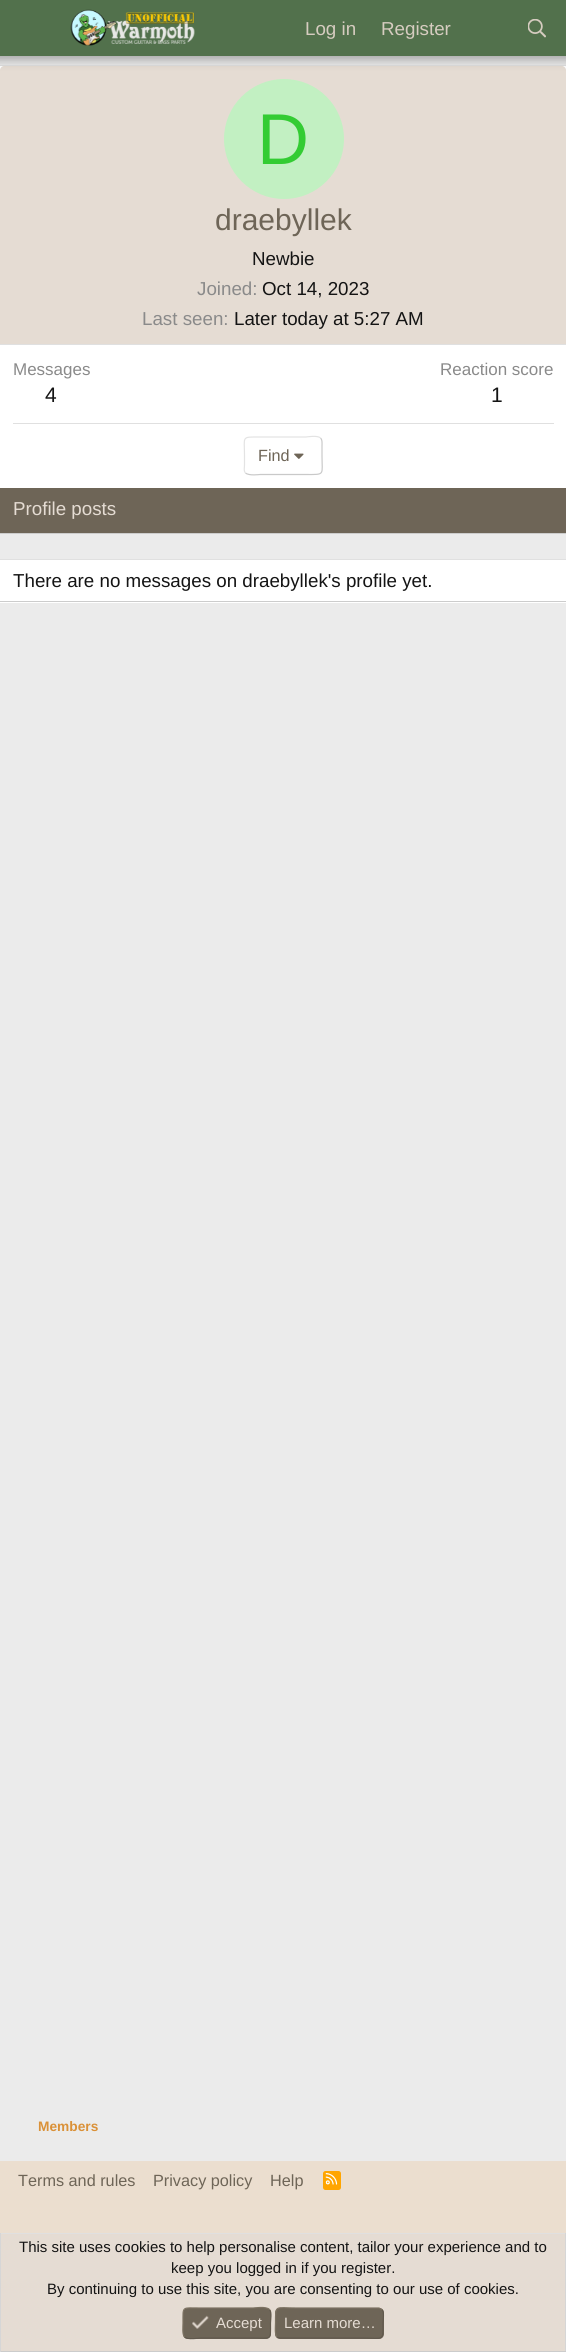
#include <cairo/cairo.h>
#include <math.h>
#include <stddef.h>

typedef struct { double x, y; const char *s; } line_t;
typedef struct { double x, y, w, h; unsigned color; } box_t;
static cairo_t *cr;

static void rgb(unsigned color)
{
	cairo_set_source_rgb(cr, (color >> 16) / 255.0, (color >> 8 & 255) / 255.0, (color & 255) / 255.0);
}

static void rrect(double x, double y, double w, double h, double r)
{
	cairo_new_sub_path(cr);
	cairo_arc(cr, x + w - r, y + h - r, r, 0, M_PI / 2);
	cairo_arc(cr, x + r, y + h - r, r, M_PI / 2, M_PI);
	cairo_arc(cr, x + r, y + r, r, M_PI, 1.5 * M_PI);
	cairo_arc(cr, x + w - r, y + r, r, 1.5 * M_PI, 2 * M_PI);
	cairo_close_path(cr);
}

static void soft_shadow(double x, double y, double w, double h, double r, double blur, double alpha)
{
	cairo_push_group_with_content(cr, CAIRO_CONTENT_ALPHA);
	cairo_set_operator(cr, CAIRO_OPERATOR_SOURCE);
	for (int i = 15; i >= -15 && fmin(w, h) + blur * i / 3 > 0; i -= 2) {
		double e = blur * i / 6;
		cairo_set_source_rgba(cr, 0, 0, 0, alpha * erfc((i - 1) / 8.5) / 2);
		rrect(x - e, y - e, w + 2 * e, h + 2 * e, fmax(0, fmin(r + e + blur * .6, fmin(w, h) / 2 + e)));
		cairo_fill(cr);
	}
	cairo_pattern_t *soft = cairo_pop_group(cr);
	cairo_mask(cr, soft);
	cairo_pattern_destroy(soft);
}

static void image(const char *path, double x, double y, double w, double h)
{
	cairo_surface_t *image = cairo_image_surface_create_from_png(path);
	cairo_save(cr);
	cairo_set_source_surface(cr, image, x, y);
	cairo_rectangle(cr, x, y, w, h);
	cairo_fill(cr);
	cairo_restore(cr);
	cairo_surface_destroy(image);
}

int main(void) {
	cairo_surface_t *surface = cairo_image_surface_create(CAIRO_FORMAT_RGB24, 566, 2352);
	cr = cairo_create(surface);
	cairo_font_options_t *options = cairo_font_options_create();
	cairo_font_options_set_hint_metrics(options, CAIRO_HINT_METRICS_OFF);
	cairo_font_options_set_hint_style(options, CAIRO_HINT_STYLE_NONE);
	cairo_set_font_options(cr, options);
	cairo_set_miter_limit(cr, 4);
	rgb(0xebebeb);
	cairo_paint(cr);
	rgb(0xffffff);
	cairo_rectangle(cr, 0, 66, 566, 422);
	cairo_fill(cr);
	rgb(0xe0e0e0);
	cairo_rectangle(cr, 0, 65, 566, 1);
	cairo_fill(cr);
	rgb(0xe5dcd3);
	cairo_new_path(cr);
	cairo_move_to(cr, 4, 66);
	cairo_line_to(cr, 562, 66);
	cairo_curve_to(cr, 564, 66, 566, 68, 566, 70);
	cairo_line_to(cr, 566, 345);
	cairo_line_to(cr, 0, 345);
	cairo_line_to(cr, 0, 70);
	cairo_curve_to(cr, 0, 68, 2, 66, 4, 66);
	cairo_close_path(cr);
	cairo_fill(cr);
	rgb(0x000000);
	soft_shadow(-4, -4, 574, 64, 0, 5, 0.3);
	rgb(0x52714c);
	cairo_rectangle(cr, 0, 0, 566, 56);
	cairo_fill(cr);
	image("img/1.png", 70, 9, 125, 37);
	image("img/2.png", 528, 19, 18, 19);
	rgb(0xcccccc);
	cairo_rectangle(cr, 0, 533, 566, 1);
	cairo_fill(cr);
	rgb(0xe0e0e0);
	cairo_rectangle(cr, 0, 344, 566, 1);
	cairo_fill(cr);
	rgb(0xc2f0c2);
	cairo_arc(cr, 284, 139, 60, 0, 2 * M_PI);
	cairo_fill(cr);
	rgb(0xe0e0e0);
	cairo_rectangle(cr, 13, 423, 541, 1);
	cairo_fill(cr);
	cairo_new_path(cr);
	cairo_move_to(cr, 320.5, 438);
	cairo_curve_to(cr, 322.5, 440, 322, 443.5, 322, 446);
	cairo_line_to(cr, 322, 455.5);
	cairo_curve_to(cr, 322, 475.5, 325.5, 474.5, 306, 474.5);
	cairo_line_to(cr, 260, 474.5);
	cairo_curve_to(cr, 259.5, 474.5, 249, 476, 245.5, 473);
	rgb(0xc9c9c9);
	cairo_set_line_width(cr, 1.2);
	cairo_stroke(cr);
	cairo_new_path(cr);
	cairo_move_to(cr, 245.5, 473);
	cairo_curve_to(cr, 243.5, 471, 244.5, 467.5, 244.5, 465);
	cairo_line_to(cr, 244.5, 455.5);
	cairo_curve_to(cr, 244.5, 436, 241, 437, 260, 437);
	cairo_line_to(cr, 306, 437);
	cairo_curve_to(cr, 306.5, 437, 317.5, 435, 320.5, 438);
	rgb(0xe3e3e3);
	cairo_stroke(cr);
	image("img/3.png", 294, 453, 10, 6);
	{
		static const box_t items[] = {
			{0, 488, 566, 45, 0x6e6557},
			{0, 560, 566, 43, 0xffffff},
			{0, 559, 566, 1, 0xe0e0e0},
			{0, 601, 566, 1, 0xcccccc},
			{0, 2161, 566, 72, 0xebdecf},
		};
		for (size_t i = 0; i < sizeof items / sizeof *items; i++) {
			rgb(items[i].color);
			cairo_rectangle(cr, items[i].x, items[i].y, items[i].w, items[i].h);
			cairo_fill(cr);
		}
	}
	rgb(0xffa500);
	rrect(323, 2171, 18, 19, 2.5);
	cairo_fill(cr);
	image("img/4.png", 325, 2173, 13, 12);
	{
		static const box_t items[] = {
			{1, 2234, 564, 117, 0xe5dcd3},
			{0, 2233, 566, 1, 0xe0e0e0},
			{565, 2233, 1, 119, 0xd6d6d6},
			{0, 2351, 566, 1, 0xcccccc},
			{0, 2233, 1, 119, 0xd6d6d6},
		};
		for (size_t i = 0; i < sizeof items / sizeof *items; i++) {
			rgb(items[i].color);
			cairo_rectangle(cr, items[i].x, items[i].y, items[i].w, items[i].h);
			cairo_fill(cr);
		}
	}
	rgb(0x6e6557);
	rrect(183, 2308, 88, 31, 5);
	cairo_fill(cr);
	cairo_new_path(cr);
	cairo_move_to(cr, 269.5, 2309.5);
	cairo_curve_to(cr, 272, 2312, 270.5, 2320, 270.5, 2323);
	cairo_curve_to(cr, 270.5, 2341, 272, 2338, 253, 2338);
	cairo_line_to(cr, 200.5, 2338);
	cairo_curve_to(cr, 199.5, 2338, 187.5, 2340, 184.5, 2337);
	rgb(0x60584c);
	cairo_stroke(cr);
	cairo_new_path(cr);
	cairo_move_to(cr, 184.5, 2337);
	cairo_curve_to(cr, 182, 2334, 183, 2326.5, 183, 2323);
	cairo_curve_to(cr, 183, 2305.5, 181.5, 2308, 200.5, 2308);
	cairo_line_to(cr, 253, 2308);
	cairo_curve_to(cr, 254.5, 2308, 266, 2306, 269.5, 2309.5);
	rgb(0x7c7262);
	cairo_stroke(cr);
	image("img/5.png", 192, 2315, 17, 14);
	rgb(0x6e6557);
	rrect(275, 2308, 109, 31, 5);
	cairo_fill(cr);
	cairo_new_path(cr);
	cairo_move_to(cr, 382, 2309.5);
	cairo_curve_to(cr, 384.5, 2312, 383, 2320, 383, 2323);
	cairo_curve_to(cr, 383, 2342, 384, 2338, 362.5, 2338);
	cairo_line_to(cr, 280, 2338);
	cairo_line_to(cr, 277, 2337);
	rgb(0x60584c);
	cairo_stroke(cr);
	cairo_new_path(cr);
	cairo_move_to(cr, 277, 2337);
	cairo_curve_to(cr, 274.5, 2334, 275.5, 2326.5, 275.5, 2323);
	cairo_curve_to(cr, 275.5, 2304, 275, 2308, 296.5, 2308);
	cairo_line_to(cr, 379, 2308);
	cairo_line_to(cr, 382, 2309.5);
	rgb(0x7c7262);
	cairo_stroke(cr);
	cairo_select_font_face(cr, "Liberation Sans", CAIRO_FONT_SLANT_NORMAL, CAIRO_FONT_WEIGHT_NORMAL);
	cairo_set_font_size(cr, 18.75);
	rgb(0xd6ccc0);
	cairo_move_to(cr, 305, 35);
	cairo_show_text(cr, "Log in");
	cairo_move_to(cr, 381, 35);
	cairo_show_text(cr, "Register");
	cairo_set_font_size(cr, 72);
	rgb(0x33cc33);
	cairo_move_to(cr, 257, 164);
	cairo_show_text(cr, "D");
	cairo_set_font_size(cr, 30);
	rgb(0x6e6557);
	cairo_move_to(cr, 215, 230);
	cairo_show_text(cr, "draebyllek");
	cairo_set_font_size(cr, 18.75);
	rgb(0x141414);
	cairo_move_to(cr, 252, 265);
	cairo_show_text(cr, "Newbie");
	rgb(0x8a8a8a);
	cairo_move_to(cr, 197, 295);
	cairo_show_text(cr, "Joined:");
	rgb(0x141414);
	cairo_move_to(cr, 262, 295);
	cairo_show_text(cr, "Oct 14, 2023");
	rgb(0x8a8a8a);
	cairo_move_to(cr, 142, 325);
	cairo_show_text(cr, "Last seen:");
	rgb(0x141414);
	cairo_move_to(cr, 234, 325);
	cairo_show_text(cr, "Later today at 5:27 AM");
	cairo_set_font_size(cr, 17);
	rgb(0x8a8a8a);
	cairo_move_to(cr, 13, 375);
	cairo_show_text(cr, "Messages");
	cairo_set_font_size(cr, 21);
	rgb(0x141414);
	cairo_move_to(cr, 45, 402);
	cairo_show_text(cr, "4");
	cairo_set_font_size(cr, 17);
	rgb(0x8a8a8a);
	cairo_move_to(cr, 440, 375);
	cairo_show_text(cr, "Reaction score");
	cairo_set_font_size(cr, 21);
	rgb(0x141414);
	cairo_move_to(cr, 491, 402);
	cairo_show_text(cr, "1");
	cairo_set_font_size(cr, 16.25);
	rgb(0x6e6557);
	cairo_move_to(cr, 258, 461);
	cairo_show_text(cr, "Find");
	cairo_set_font_size(cr, 18.75);
	rgb(0xe5dcd3);
	cairo_move_to(cr, 13, 515);
	cairo_show_text(cr, "Profile posts");
	rgb(0x141414);
	cairo_move_to(cr, 13, 587);
	cairo_show_text(cr, "There are no messages on draebyllek's profile yet.");
	cairo_select_font_face(cr, "Liberation Sans", CAIRO_FONT_SLANT_NORMAL, CAIRO_FONT_WEIGHT_BOLD);
	cairo_set_font_size(cr, 13.75);
	rgb(0xda9138);
	cairo_move_to(cr, 38, 2131);
	cairo_show_text(cr, "Members");
	cairo_select_font_face(cr, "Liberation Sans", CAIRO_FONT_SLANT_NORMAL, CAIRO_FONT_WEIGHT_NORMAL);
	cairo_set_font_size(cr, 16.25);
	rgb(0x6e6557);
	{
		static const line_t items[] = {
			{18, 2186, "Terms and rules"},
			{153, 2186, "Privacy policy"},
			{270, 2186, "Help"},
		};
		for (size_t i = 0; i < sizeof items / sizeof *items; i++) {
			cairo_move_to(cr, items[i].x, items[i].y);
			cairo_show_text(cr, items[i].s);
		}
	}
	cairo_set_font_size(cr, 15);
	rgb(0x141414);
	{
		static const line_t items[] = {
			{19, 2252, "This site uses cookies to help personalise content, tailor your experience and to"},
			{171, 2273, "keep you logged in if you register."},
			{47, 2294, "By continuing to use this site, you are consenting to our use of cookies."},
		};
		for (size_t i = 0; i < sizeof items / sizeof *items; i++) {
			cairo_move_to(cr, items[i].x, items[i].y);
			cairo_show_text(cr, items[i].s);
		}
	}
	rgb(0xe5dcd3);
	cairo_move_to(cr, 216, 2328);
	cairo_show_text(cr, "Accept");
	cairo_move_to(cr, 284, 2328);
	cairo_show_text(cr, "Learn more…");
	cairo_surface_write_to_png(surface, "page.png");
	cairo_font_options_destroy(options);
	cairo_destroy(cr);
	cairo_surface_destroy(surface);
	return 0;
}
